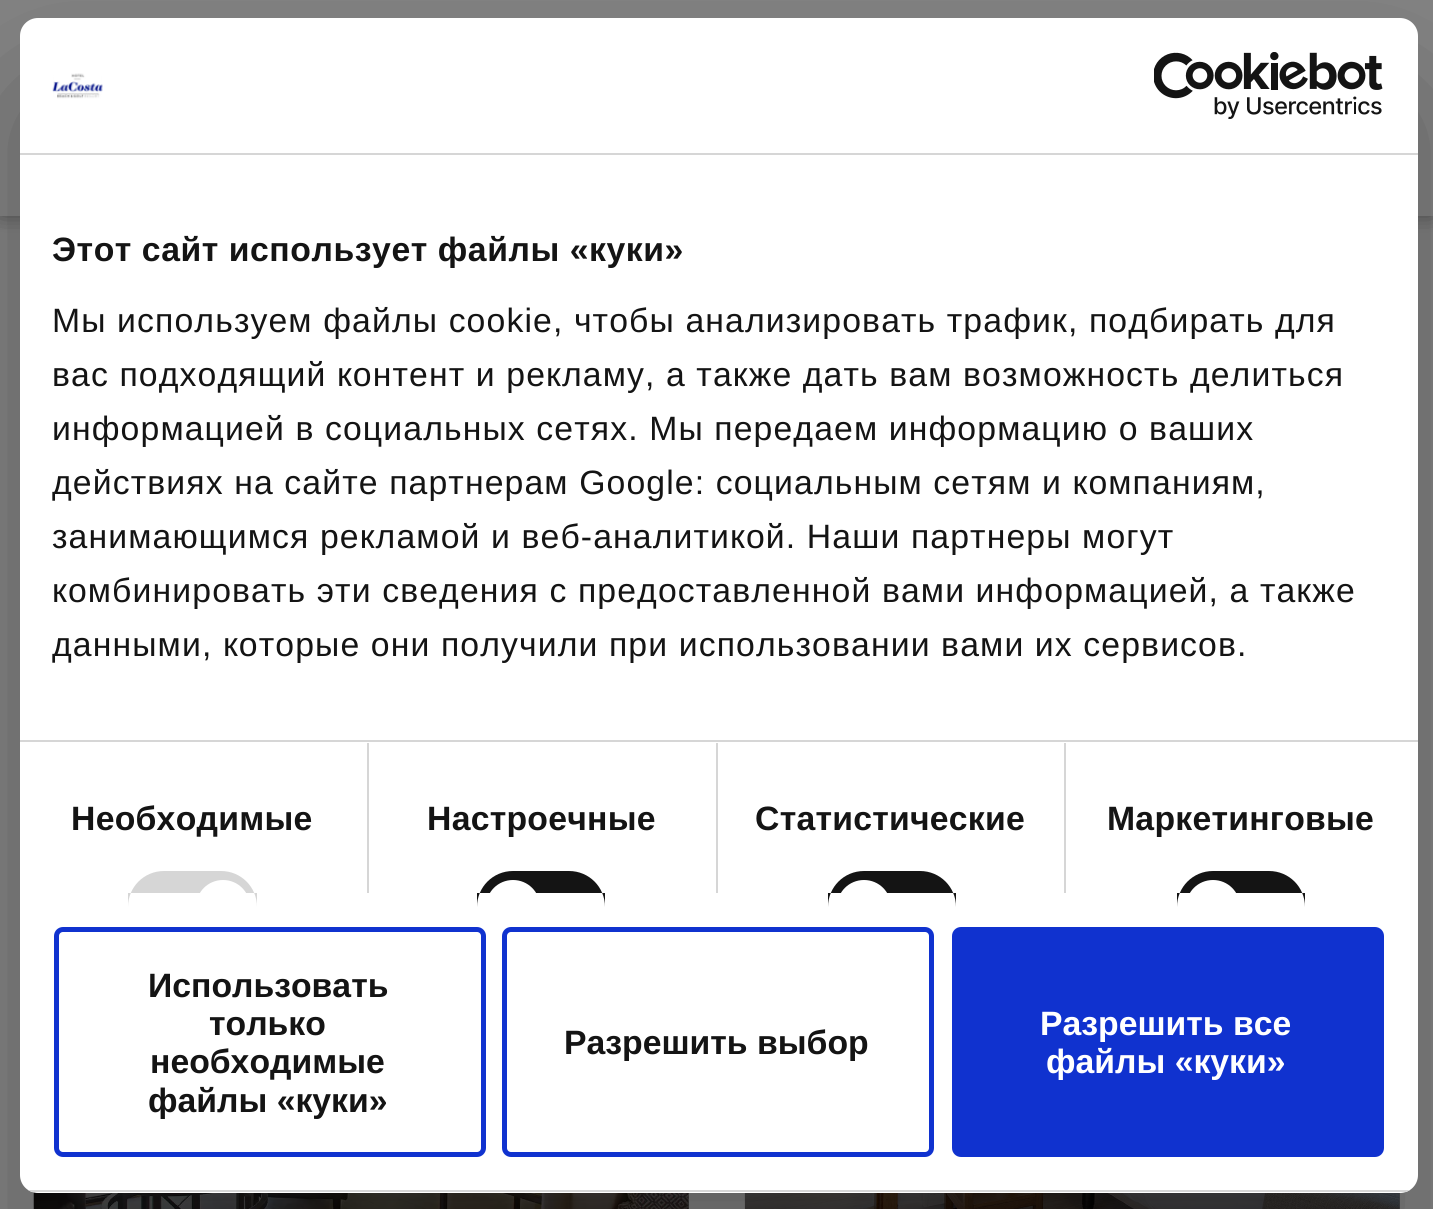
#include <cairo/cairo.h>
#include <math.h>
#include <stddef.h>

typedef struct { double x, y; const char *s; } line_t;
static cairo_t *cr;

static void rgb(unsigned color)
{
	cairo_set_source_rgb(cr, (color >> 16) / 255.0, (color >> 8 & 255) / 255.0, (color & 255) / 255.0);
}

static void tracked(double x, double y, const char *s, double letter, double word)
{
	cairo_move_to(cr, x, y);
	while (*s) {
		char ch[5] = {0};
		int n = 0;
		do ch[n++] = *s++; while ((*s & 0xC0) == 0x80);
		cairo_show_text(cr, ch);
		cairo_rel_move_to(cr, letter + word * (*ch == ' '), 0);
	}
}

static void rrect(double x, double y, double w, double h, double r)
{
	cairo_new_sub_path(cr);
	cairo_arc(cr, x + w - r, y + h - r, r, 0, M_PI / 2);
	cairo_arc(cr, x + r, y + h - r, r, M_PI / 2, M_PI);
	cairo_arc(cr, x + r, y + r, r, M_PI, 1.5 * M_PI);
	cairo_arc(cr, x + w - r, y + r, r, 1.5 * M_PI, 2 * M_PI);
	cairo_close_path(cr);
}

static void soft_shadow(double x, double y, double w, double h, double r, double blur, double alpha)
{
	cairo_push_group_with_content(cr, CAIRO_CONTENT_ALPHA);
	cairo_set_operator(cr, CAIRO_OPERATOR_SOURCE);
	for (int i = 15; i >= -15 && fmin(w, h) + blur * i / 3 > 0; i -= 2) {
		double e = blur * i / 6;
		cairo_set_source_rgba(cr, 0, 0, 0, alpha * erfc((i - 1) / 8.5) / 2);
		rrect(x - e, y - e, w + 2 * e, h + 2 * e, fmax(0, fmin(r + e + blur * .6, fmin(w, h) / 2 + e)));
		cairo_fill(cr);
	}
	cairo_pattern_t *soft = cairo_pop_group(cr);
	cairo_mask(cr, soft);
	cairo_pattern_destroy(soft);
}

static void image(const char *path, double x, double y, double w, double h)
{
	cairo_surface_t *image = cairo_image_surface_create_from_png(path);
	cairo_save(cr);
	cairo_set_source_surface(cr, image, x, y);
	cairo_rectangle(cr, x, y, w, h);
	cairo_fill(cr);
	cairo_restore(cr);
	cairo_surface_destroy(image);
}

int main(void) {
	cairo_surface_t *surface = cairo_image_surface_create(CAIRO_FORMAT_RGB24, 1433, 1209);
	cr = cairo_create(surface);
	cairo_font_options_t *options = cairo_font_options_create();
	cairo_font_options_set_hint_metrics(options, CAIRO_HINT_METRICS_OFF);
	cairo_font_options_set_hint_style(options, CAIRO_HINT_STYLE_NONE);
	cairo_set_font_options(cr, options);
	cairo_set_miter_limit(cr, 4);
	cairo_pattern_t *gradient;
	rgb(0x858585);
	cairo_paint(cr);
	rgb(0x000000);
	soft_shadow(0, 0, 1433, 216, 0, 11, 0.2);
	rgb(0x858585);
	cairo_rectangle(cr, 0, 0, 1433, 216);
	cairo_fill(cr);
	cairo_save(cr);
	cairo_rectangle(cr, 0, 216, 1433, 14);
	cairo_clip(cr);
	rgb(0x000000);
	soft_shadow(0, 0, 1433, 216, 0, 11, 0.2);
	cairo_restore(cr);
	image("img/1.png", 33, 1192, 656, 17);
	gradient = cairo_pattern_create_linear(361, 1103, 361, 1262);
	cairo_pattern_add_color_stop_rgba(gradient, 0, 0, 0, 0, 0);
	cairo_pattern_add_color_stop_rgba(gradient, 1, 0, 0, 0, 0.65);
	cairo_set_source(cr, gradient);
	cairo_pattern_destroy(gradient);
	cairo_rectangle(cr, 34, 1192, 655, 17);
	cairo_fill(cr);
	image("img/2.png", 744, 1193, 656, 16);
	gradient = cairo_pattern_create_linear(1072, 1103, 1072, 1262);
	cairo_pattern_add_color_stop_rgba(gradient, 0, 0, 0, 0, 0);
	cairo_pattern_add_color_stop_rgba(gradient, 1, 0, 0, 0, 0.65);
	cairo_set_source(cr, gradient);
	cairo_pattern_destroy(gradient);
	cairo_rectangle(cr, 745, 1193, 655, 16);
	cairo_fill(cr);
	rgb(0x000000);
	soft_shadow(20, 90, 1398, 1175, 18, 76.5, 0.3);
	rgb(0xffffff);
	rrect(20, 18, 1398, 1175, 18);
	cairo_fill(cr);
	rgb(0xd6d6d6);
	cairo_rectangle(cr, 20, 153, 1398, 2);
	cairo_fill(cr);
	image("img/3.png", 52, 73, 51, 26);
	image("img/4.png", 1154, 52, 229, 67);
	cairo_rectangle(cr, 20, 740, 1398, 2);
	cairo_fill(cr);
	cairo_rectangle(cr, 367, 743, 2, 150);
	cairo_fill(cr);
	cairo_new_path(cr);
	cairo_move_to(cr, 164, 871);
	cairo_line_to(cr, 221, 871);
	cairo_curve_to(cr, 241, 871, 257, 887, 257, 907);
	cairo_line_to(cr, 257, 893);
	cairo_line_to(cr, 128, 893);
	cairo_line_to(cr, 128, 907);
	cairo_curve_to(cr, 128, 887, 144, 871, 164, 871);
	cairo_close_path(cr);
	cairo_fill(cr);
	rgb(0xffffff);
	cairo_new_path(cr);
	cairo_move_to(cr, 223, 880);
	cairo_curve_to(cr, 238, 880, 250, 892, 250, 907);
	cairo_line_to(cr, 250, 893);
	cairo_line_to(cr, 196, 893);
	cairo_line_to(cr, 196, 907);
	cairo_curve_to(cr, 196, 892, 208, 880, 223, 880);
	cairo_close_path(cr);
	cairo_fill(cr);
	rgb(0xd6d6d6);
	cairo_rectangle(cr, 716, 743, 2, 150);
	cairo_fill(cr);
	rgb(0x141414);
	cairo_new_path(cr);
	cairo_move_to(cr, 513, 871);
	cairo_line_to(cr, 569, 871);
	cairo_curve_to(cr, 589, 871, 605, 887, 605, 907);
	cairo_line_to(cr, 605, 893);
	cairo_line_to(cr, 477, 893);
	cairo_line_to(cr, 477, 907);
	cairo_curve_to(cr, 477, 887, 493, 871, 513, 871);
	cairo_close_path(cr);
	cairo_fill(cr);
	rgb(0xffffff);
	cairo_new_path(cr);
	cairo_move_to(cr, 513, 880);
	cairo_curve_to(cr, 528, 880, 540, 892, 540, 907);
	cairo_line_to(cr, 540, 893);
	cairo_line_to(cr, 486, 893);
	cairo_line_to(cr, 486, 907);
	cairo_curve_to(cr, 486, 892, 498, 880, 513, 880);
	cairo_close_path(cr);
	cairo_fill(cr);
	rgb(0xd6d6d6);
	cairo_rectangle(cr, 1064, 743, 2, 150);
	cairo_fill(cr);
	rgb(0x141414);
	cairo_new_path(cr);
	cairo_move_to(cr, 864, 871);
	cairo_line_to(cr, 920, 871);
	cairo_curve_to(cr, 940, 871, 956, 887, 956, 907);
	cairo_line_to(cr, 956, 893);
	cairo_line_to(cr, 828, 893);
	cairo_line_to(cr, 828, 907);
	cairo_curve_to(cr, 828, 887, 844, 871, 864, 871);
	cairo_close_path(cr);
	cairo_fill(cr);
	rgb(0xffffff);
	cairo_new_path(cr);
	cairo_move_to(cr, 864, 880);
	cairo_curve_to(cr, 879, 880, 891, 892, 891, 907);
	cairo_line_to(cr, 891, 893);
	cairo_line_to(cr, 837, 893);
	cairo_line_to(cr, 837, 907);
	cairo_curve_to(cr, 837, 892, 849, 880, 864, 880);
	cairo_close_path(cr);
	cairo_fill(cr);
	rgb(0x141414);
	cairo_new_path(cr);
	cairo_move_to(cr, 1213, 871);
	cairo_line_to(cr, 1269, 871);
	cairo_curve_to(cr, 1289, 871, 1305, 887, 1305, 907);
	cairo_line_to(cr, 1305, 893);
	cairo_line_to(cr, 1177, 893);
	cairo_line_to(cr, 1177, 907);
	cairo_curve_to(cr, 1177, 887, 1193, 871, 1213, 871);
	cairo_close_path(cr);
	cairo_fill(cr);
	rgb(0xffffff);
	cairo_new_path(cr);
	cairo_move_to(cr, 1213, 880);
	cairo_curve_to(cr, 1228, 880, 1240, 892, 1240, 907);
	cairo_line_to(cr, 1240, 893);
	cairo_line_to(cr, 1186, 893);
	cairo_line_to(cr, 1186, 907);
	cairo_curve_to(cr, 1186, 892, 1198, 880, 1213, 880);
	cairo_close_path(cr);
	cairo_fill(cr);
	cairo_save(cr);
	rrect(20, 18, 1398, 1175, 18);
	cairo_clip(cr);
	rgb(0xd6d6d6);
	cairo_rectangle(cr, 20, 1190, 1398, 2);
	cairo_fill(cr);
	cairo_restore(cr);
	rrect(56.5, 929.5, 427, 225, 6.5);
	rgb(0x1032cf);
	cairo_set_line_width(cr, 5);
	cairo_stroke(cr);
	rrect(504.5, 929.5, 427, 225, 6.5);
	cairo_stroke(cr);
	rrect(954.5, 929.5, 427, 225, 6.5);
	cairo_fill_preserve(cr);
	cairo_stroke(cr);
	cairo_select_font_face(cr, "Liberation Sans", CAIRO_FONT_SLANT_NORMAL, CAIRO_FONT_WEIGHT_BOLD);
	cairo_set_font_size(cr, 33.75);
	rgb(0x141414);
	tracked(52, 261, "Этот сайт использует файлы «куки»", 0.55, 0);
	cairo_select_font_face(cr, "Liberation Sans", CAIRO_FONT_SLANT_NORMAL, CAIRO_FONT_WEIGHT_NORMAL);
	{
		static const line_t items[] = {
			{52, 332, "Мы используем файлы cookie, чтобы анализировать трафик, подбирать для"},
			{52, 386, "вас подходящий контент и рекламу, а также дать вам возможность делиться"},
			{52, 440, "информацией в социальных сетях. Мы передаем информацию о ваших"},
			{52, 494, "действиях на сайте партнерам Google: социальным сетям и компаниям,"},
			{52, 548, "занимающимся рекламой и веб-аналитикой. Наши партнеры могут"},
			{52, 602, "комбинировать эти сведения с предоставленной вами информацией, а также"},
			{52, 656, "данными, которые они получили при использовании вами их сервисов."},
		};
		for (size_t i = 0; i < sizeof items / sizeof *items; i++) {
			tracked(items[i].x, items[i].y, items[i].s, 1.12, 0);
		}
	}
	cairo_select_font_face(cr, "Liberation Sans", CAIRO_FONT_SLANT_NORMAL, CAIRO_FONT_WEIGHT_BOLD);
	{
		static const line_t items[] = {
			{71, 830, "Необходимые"},
			{427, 830, "Настроечные"},
			{755, 830, "Статистические"},
			{1107, 830, "Маркетинговые"},
		};
		for (size_t i = 0; i < sizeof items / sizeof *items; i++) {
			tracked(items[i].x, items[i].y, items[i].s, 0.25, 0);
		}
	}
	{
		static const line_t items[] = {
			{148, 997, "Использовать"},
			{209, 1035, "только"},
			{150, 1073, "необходимые"},
			{148, 1112, "файлы «куки»"},
			{564, 1054, "Разрешить выбор"},
		};
		for (size_t i = 0; i < sizeof items / sizeof *items; i++) {
			cairo_move_to(cr, items[i].x, items[i].y);
			cairo_show_text(cr, items[i].s);
		}
	}
	rgb(0xffffff);
	cairo_move_to(cr, 1040, 1035);
	cairo_show_text(cr, "Разрешить все");
	cairo_move_to(cr, 1046, 1073);
	cairo_show_text(cr, "файлы «куки»");
	cairo_surface_write_to_png(surface, "page.png");
	cairo_font_options_destroy(options);
	cairo_destroy(cr);
	cairo_surface_destroy(surface);
	return 0;
}
